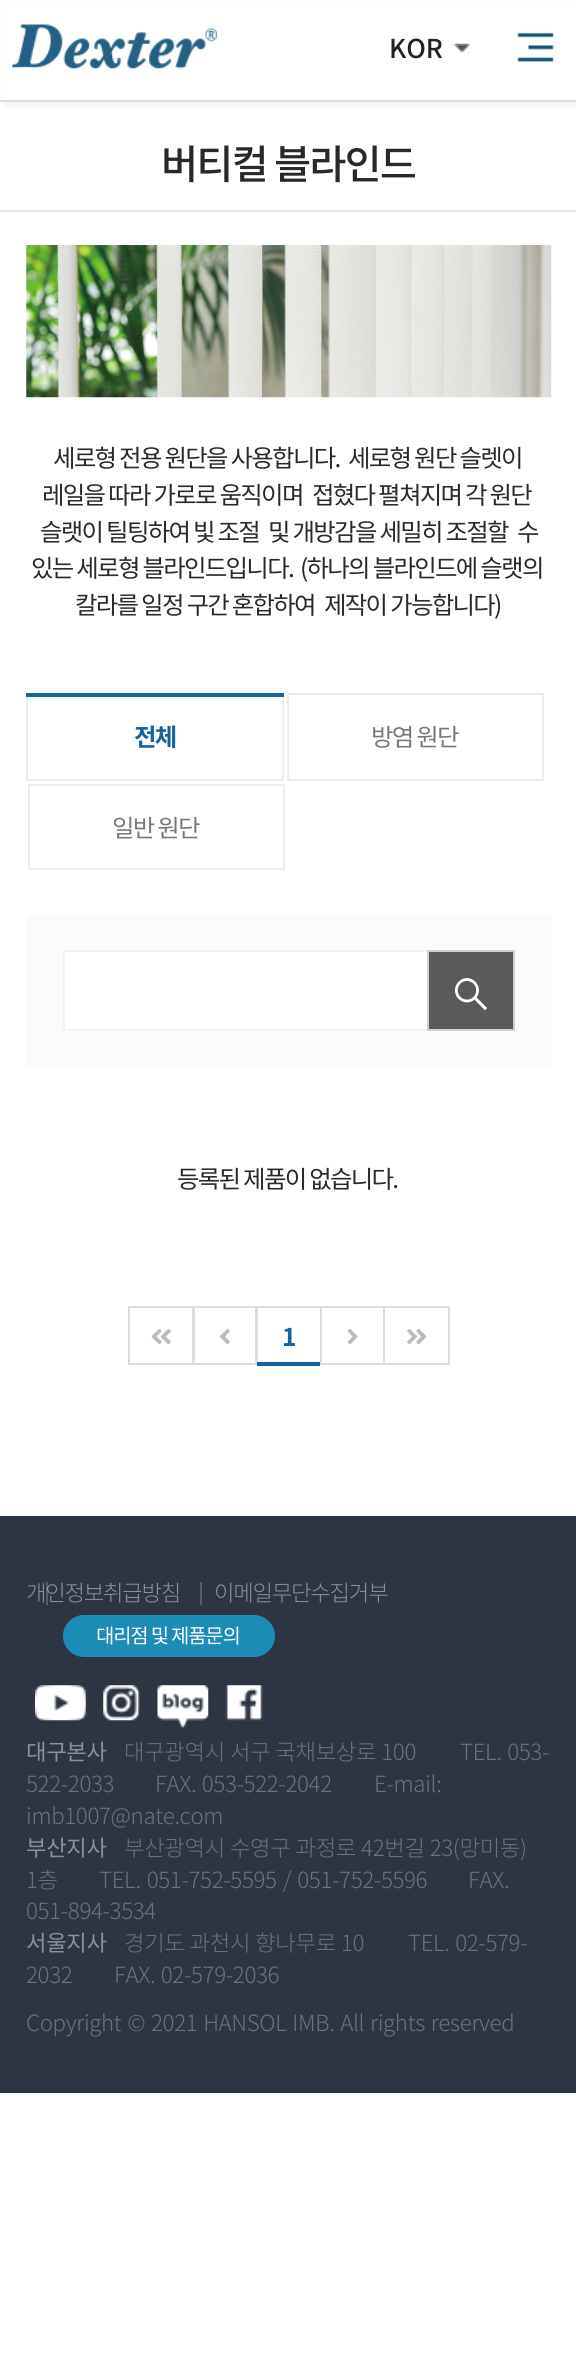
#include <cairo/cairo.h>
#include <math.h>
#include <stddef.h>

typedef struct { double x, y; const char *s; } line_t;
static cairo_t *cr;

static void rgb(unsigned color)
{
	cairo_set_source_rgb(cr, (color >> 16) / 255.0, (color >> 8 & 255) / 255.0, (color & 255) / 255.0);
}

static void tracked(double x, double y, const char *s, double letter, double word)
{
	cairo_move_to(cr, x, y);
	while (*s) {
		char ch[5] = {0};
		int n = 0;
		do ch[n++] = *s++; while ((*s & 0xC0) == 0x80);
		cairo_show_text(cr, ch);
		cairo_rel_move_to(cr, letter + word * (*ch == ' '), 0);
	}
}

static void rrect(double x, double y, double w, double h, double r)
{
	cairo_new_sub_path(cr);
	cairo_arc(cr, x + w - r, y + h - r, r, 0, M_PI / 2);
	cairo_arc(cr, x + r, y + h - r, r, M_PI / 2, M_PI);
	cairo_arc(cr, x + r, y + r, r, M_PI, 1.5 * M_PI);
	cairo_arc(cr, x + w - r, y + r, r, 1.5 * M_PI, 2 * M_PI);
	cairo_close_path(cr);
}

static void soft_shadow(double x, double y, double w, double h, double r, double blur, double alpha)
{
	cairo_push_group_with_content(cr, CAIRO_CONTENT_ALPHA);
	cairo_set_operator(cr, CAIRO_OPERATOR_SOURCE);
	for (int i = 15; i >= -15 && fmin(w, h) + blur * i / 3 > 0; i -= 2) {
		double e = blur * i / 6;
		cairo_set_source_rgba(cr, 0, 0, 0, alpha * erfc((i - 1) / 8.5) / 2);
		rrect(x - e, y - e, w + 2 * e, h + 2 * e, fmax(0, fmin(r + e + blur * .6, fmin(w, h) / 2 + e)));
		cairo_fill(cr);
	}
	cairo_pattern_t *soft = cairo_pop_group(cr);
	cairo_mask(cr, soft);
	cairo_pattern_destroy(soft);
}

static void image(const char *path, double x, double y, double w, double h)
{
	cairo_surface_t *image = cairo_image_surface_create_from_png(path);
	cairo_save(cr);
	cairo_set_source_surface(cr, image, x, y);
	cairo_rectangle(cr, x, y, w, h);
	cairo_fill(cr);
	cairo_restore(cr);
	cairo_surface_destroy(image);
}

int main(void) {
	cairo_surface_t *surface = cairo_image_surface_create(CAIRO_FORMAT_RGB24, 576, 2361);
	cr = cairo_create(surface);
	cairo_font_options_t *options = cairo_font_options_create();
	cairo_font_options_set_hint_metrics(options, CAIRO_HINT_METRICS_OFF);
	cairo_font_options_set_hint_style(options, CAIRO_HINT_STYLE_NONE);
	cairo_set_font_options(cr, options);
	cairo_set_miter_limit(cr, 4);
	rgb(0xffffff);
	cairo_paint(cr);
	rgb(0x000000);
	soft_shadow(5, 5, 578, 102, 0, 2.5, 0.05);
	rgb(0xffffff);
	cairo_rectangle(cr, 3, 3, 573, 97);
	cairo_fill(cr);
	rgb(0xdddddd);
	cairo_rectangle(cr, 0, 100, 576, 2);
	cairo_fill(cr);
	image("img/1.png", 12, 24, 205, 45);
	image("img/2.png", 517, 32, 37, 30);
	image("img/3.png", 453, 43, 18, 10);
	rgb(0xe5e5e5);
	cairo_rectangle(cr, 0, 210, 576, 2);
	cairo_fill(cr);
	image("img/4.png", 26, 245, 526, 153);
	cairo_rectangle(cr, 27, 694, 256, 86);
	rgb(0xececec);
	cairo_stroke(cr);
	rgb(0x12649e);
	cairo_rectangle(cr, 26, 693, 258, 4);
	cairo_fill(cr);
	cairo_rectangle(cr, 288, 694, 255, 86);
	rgb(0xececec);
	cairo_stroke(cr);
	cairo_rectangle(cr, 29, 785, 255, 84);
	cairo_stroke(cr);
	rgb(0xfbfbfb);
	cairo_rectangle(cr, 26, 914, 525, 154);
	cairo_fill(cr);
	rgb(0xffffff);
	cairo_rectangle(cr, 65, 952, 362, 77);
	cairo_fill(cr);
	cairo_rectangle(cr, 64, 951, 450, 79);
	rgb(0xf0f2f4);
	cairo_stroke(cr);
	rgb(0x5a5a5a);
	cairo_rectangle(cr, 428, 951, 86, 79);
	cairo_fill_preserve(cr);
	rgb(0xd0d0d0);
	cairo_stroke(cr);
	image("img/5.png", 455, 978, 32, 33);
	cairo_rectangle(cr, 129, 1307, 64, 57);
	rgb(0xdddddd);
	cairo_stroke(cr);
	image("img/6.png", 151, 1329, 20, 16);
	cairo_rectangle(cr, 194, 1307, 62, 57);
	cairo_stroke(cr);
	image("img/7.png", 220, 1329, 10, 16);
	cairo_rectangle(cr, 321, 1307, 63, 57);
	cairo_stroke(cr);
	cairo_rectangle(cr, 257, 1307, 64, 57);
	cairo_stroke(cr);
	rgb(0x12649e);
	cairo_rectangle(cr, 257, 1362, 63, 4);
	cairo_fill(cr);
	image("img/8.png", 347, 1329, 11, 16);
	cairo_rectangle(cr, 384, 1307, 65, 57);
	rgb(0xdddddd);
	cairo_stroke(cr);
	image("img/9.png", 407, 1329, 20, 16);
	rgb(0x2d3542);
	cairo_rectangle(cr, 0, 1516, 576, 577);
	cairo_fill(cr);
	rgb(0x575d68);
	cairo_rectangle(cr, 200, 1582, 2, 23);
	cairo_fill(cr);
	rgb(0x1c8cb7);
	rrect(63, 1615, 212, 42, 21);
	cairo_fill(cr);
	image("img/10.png", 35, 1685, 51, 36);
	image("img/11.png", 103, 1685, 37, 36);
	image("img/12.png", 157, 1685, 52, 43);
	image("img/13.png", 225, 1685, 38, 36);
	cairo_select_font_face(cr, "Noto Sans KR Medium", CAIRO_FONT_SLANT_NORMAL, CAIRO_FONT_WEIGHT_NORMAL);
	cairo_set_font_size(cr, 26);
	rgb(0x222222);
	cairo_move_to(cr, 389, 58);
	cairo_show_text(cr, "KOR");
	cairo_set_font_size(cr, 40.5);
	rgb(0x292929);
	tracked(161, 179, "버티컬 블라인드", -2, 0);
	cairo_select_font_face(cr, "Noto Sans KR", CAIRO_FONT_SLANT_NORMAL, CAIRO_FONT_WEIGHT_NORMAL);
	cairo_set_font_size(cr, 24.5);
	{
		static const line_t items[] = {
			{53, 467, "세로형 전용 원단을 사용합니다."},
			{348, 467, "세로형 원단 슬렛이"},
			{42, 504, "레일을 따라 가로로 움직이며"},
			{312, 504, "접혔다 펼쳐지며 각 원단"},
			{40, 541, "슬랫이 틸팅하여 빛 조절"},
			{268, 541, "및 개방감을 세밀히 조절할"},
			{517, 541, "수"},
			{31, 577, "있는 세로형 블라인드입니다."},
			{300, 577, "(하나의 블라인드에 슬랫의"},
			{75, 614, "칼라를 일정 구간 혼합하여"},
			{324, 614, "제작이 가능합니다)"},
		};
		for (size_t i = 0; i < sizeof items / sizeof *items; i++) {
			tracked(items[i].x, items[i].y, items[i].s, -1.75, 0);
		}
	}
	cairo_select_font_face(cr, "Noto Sans KR", CAIRO_FONT_SLANT_NORMAL, CAIRO_FONT_WEIGHT_BOLD);
	rgb(0x12649e);
	tracked(134, 746, "전체", -1.75, 0);
	cairo_select_font_face(cr, "Noto Sans KR", CAIRO_FONT_SLANT_NORMAL, CAIRO_FONT_WEIGHT_NORMAL);
	rgb(0x787878);
	tracked(371, 746, "방염 원단", -1.75, 0);
	tracked(112, 837, "일반 원단", -1.75, 0);
	rgb(0x292929);
	tracked(177, 1188, "등록된 제품이 없습니다.", -1.75, 0);
	cairo_select_font_face(cr, "Noto Sans KR", CAIRO_FONT_SLANT_NORMAL, CAIRO_FONT_WEIGHT_BOLD);
	rgb(0x12649e);
	tracked(282, 1346, "1", -1.25, 0);
	cairo_select_font_face(cr, "Noto Sans KR Light", CAIRO_FONT_SLANT_NORMAL, CAIRO_FONT_WEIGHT_NORMAL);
	cairo_set_font_size(cr, 22.3);
	rgb(0x8c9097);
	tracked(26, 1601, "개인정보취급방침", -1.25, 0);
	cairo_set_source_rgba(cr, 1, 1, 1, 0.2);
	cairo_rectangle(cr, 46, 1582, 2, 23);
	cairo_fill(cr);
	rgb(0x8c9097);
	tracked(214, 1601, "이메일무단수집거부", -1.25, 0);
	cairo_select_font_face(cr, "Noto Sans KR", CAIRO_FONT_SLANT_NORMAL, CAIRO_FONT_WEIGHT_NORMAL);
	cairo_set_font_size(cr, 20);
	rgb(0xffffff);
	tracked(96, 1643, "대리점 및 제품문의", -1.25, 0);
	cairo_set_font_size(cr, 22.3);
	rgb(0x8c9097);
	tracked(26, 1760, "대구본사", -0.35, 0);
	cairo_select_font_face(cr, "Noto Sans KR Light", CAIRO_FONT_SLANT_NORMAL, CAIRO_FONT_WEIGHT_NORMAL);
	rgb(0x6c727b);
	tracked(124, 1760, "대구광역시 서구 국채보상로 100", -0.35, 0.5);
	tracked(460, 1760, "TEL. 053-", -0.35, 1);
	tracked(26, 1792, "522-2033", -0.35, 0);
	tracked(155, 1792, "FAX. 053-522-2042", -0.35, 1);
	tracked(374, 1792, "E-mail:", -0.35, 0);
	tracked(26, 1824, "imb1007@nate.com", -0.35, 0);
	cairo_select_font_face(cr, "Noto Sans KR", CAIRO_FONT_SLANT_NORMAL, CAIRO_FONT_WEIGHT_NORMAL);
	rgb(0x8c9097);
	tracked(26, 1856, "부산지사", -0.35, 0);
	cairo_select_font_face(cr, "Noto Sans KR Light", CAIRO_FONT_SLANT_NORMAL, CAIRO_FONT_WEIGHT_NORMAL);
	rgb(0x6c727b);
	tracked(124, 1856, "부산광역시 수영구 과정로 42번길 23(망미동)", -0.35, 0.5);
	tracked(26, 1888, "1층", -0.35, 0);
	tracked(99, 1888, "TEL. 051-752-5595 / 051-752-5596", -0.35, 1.5);
	tracked(468, 1888, "FAX.", -0.35, 0);
	tracked(26, 1919, "051-894-3534", -0.35, 0);
	cairo_select_font_face(cr, "Noto Sans KR", CAIRO_FONT_SLANT_NORMAL, CAIRO_FONT_WEIGHT_NORMAL);
	rgb(0x8c9097);
	tracked(26, 1951, "서울지사", -0.35, 0);
	cairo_select_font_face(cr, "Noto Sans KR Light", CAIRO_FONT_SLANT_NORMAL, CAIRO_FONT_WEIGHT_NORMAL);
	rgb(0x6c727b);
	tracked(124, 1951, "경기도 과천시 향나무로 10", -0.35, 0.5);
	tracked(408, 1951, "TEL. 02-579-", -0.35, 1);
	tracked(26, 1983, "2032", -0.35, 0);
	tracked(114, 1983, "FAX. 02-579-2036", -0.35, 1);
	tracked(26, 2031, "Copyright © 2021 HANSOL IMB. All rights reserved", -0.35, 1.25);
	cairo_surface_write_to_png(surface, "page.png");
	cairo_font_options_destroy(options);
	cairo_destroy(cr);
	cairo_surface_destroy(surface);
	return 0;
}
